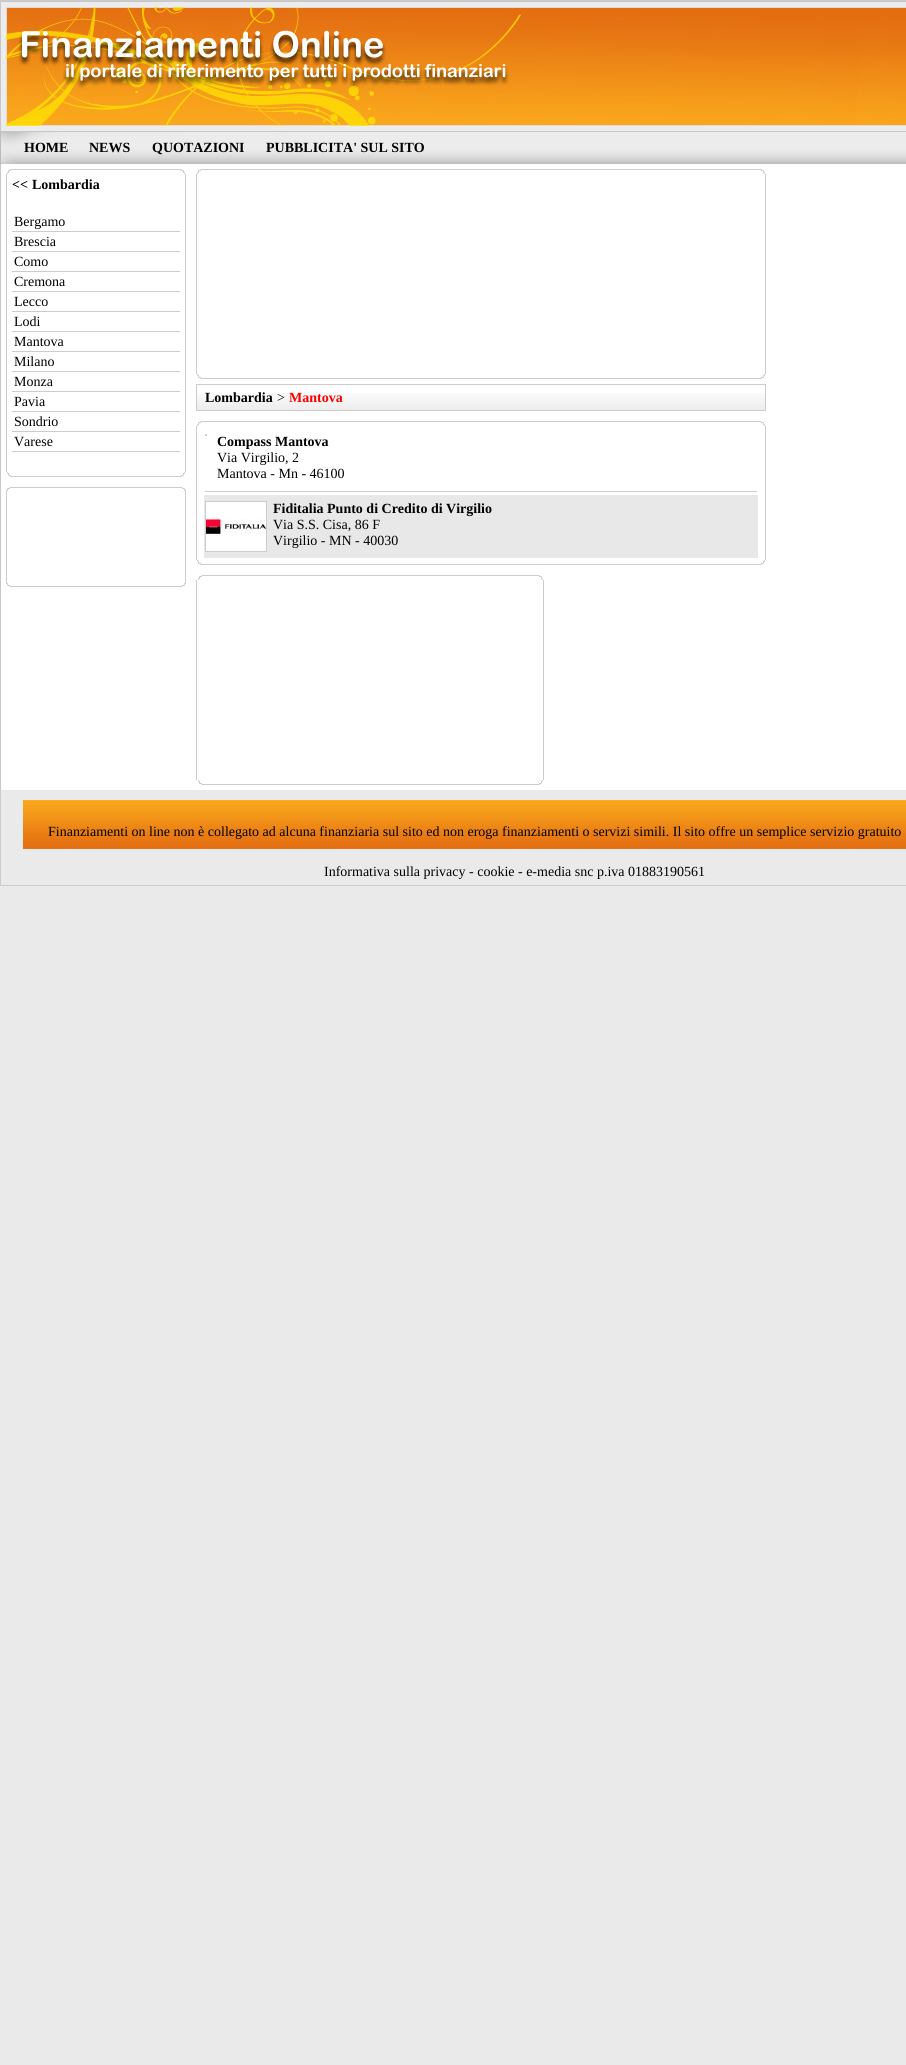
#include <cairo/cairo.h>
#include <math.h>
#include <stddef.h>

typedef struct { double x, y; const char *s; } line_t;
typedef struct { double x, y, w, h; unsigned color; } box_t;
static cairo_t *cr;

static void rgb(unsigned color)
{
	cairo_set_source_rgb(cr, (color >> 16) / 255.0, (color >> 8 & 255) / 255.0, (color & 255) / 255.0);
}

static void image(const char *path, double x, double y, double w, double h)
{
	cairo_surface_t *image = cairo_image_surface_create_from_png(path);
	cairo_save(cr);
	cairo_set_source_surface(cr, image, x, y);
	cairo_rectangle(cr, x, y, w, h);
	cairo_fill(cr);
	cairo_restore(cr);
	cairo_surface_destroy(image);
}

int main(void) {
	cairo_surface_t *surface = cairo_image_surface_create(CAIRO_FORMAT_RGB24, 906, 2065);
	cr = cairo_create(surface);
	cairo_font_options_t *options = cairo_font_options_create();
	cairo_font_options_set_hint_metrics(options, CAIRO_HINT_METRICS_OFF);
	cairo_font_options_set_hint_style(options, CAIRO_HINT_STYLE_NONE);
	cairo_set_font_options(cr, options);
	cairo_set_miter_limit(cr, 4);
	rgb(0xeaeaea);
	cairo_paint(cr);
	image("img/1.png", 0, 0, 906, 132);
	image("img/2.png", 0, 132, 906, 32);
	rgb(0xffffff);
	cairo_rectangle(cr, 1, 164, 905, 626);
	cairo_fill(cr);
	rgb(0xc7c7c7);
	cairo_rectangle(cr, 0, 164, 1, 626);
	cairo_fill(cr);
	image("img/3.png", 7, 169, 5, 5);
	rgb(0xcccccc);
	cairo_rectangle(cr, 12, 169, 168, 1);
	cairo_fill(cr);
	image("img/4.png", 180, 169, 5, 5);
	{
		static const box_t items[] = {
			{6, 174, 1, 298, 0xcccccc},
			{12, 231, 168, 1, 0xcccccc},
			{12, 251, 168, 1, 0xcccccc},
			{12, 271, 168, 1, 0xcccccc},
			{12, 291, 168, 1, 0xcccccc},
			{12, 311, 168, 1, 0xcccccc},
			{12, 331, 168, 1, 0xcccccc},
			{12, 351, 168, 1, 0xcccccc},
			{12, 371, 168, 1, 0xcccccc},
			{12, 391, 168, 1, 0xcccccc},
			{12, 411, 168, 1, 0xcccccc},
			{12, 431, 168, 1, 0xcccccc},
			{12, 451, 168, 1, 0xcccccc},
			{185, 174, 1, 298, 0xcccccc},
		};
		for (size_t i = 0; i < sizeof items / sizeof *items; i++) {
			rgb(items[i].color);
			cairo_rectangle(cr, items[i].x, items[i].y, items[i].w, items[i].h);
			cairo_fill(cr);
		}
	}
	image("img/5.png", 7, 472, 5, 5);
	cairo_rectangle(cr, 12, 476, 168, 1);
	cairo_fill(cr);
	image("img/6.png", 180, 472, 5, 5);
	image("img/3.png", 6, 487, 5, 5);
	cairo_rectangle(cr, 11, 487, 170, 1);
	cairo_fill(cr);
	image("img/4.png", 181, 487, 5, 5);
	cairo_rectangle(cr, 6, 492, 1, 90);
	cairo_fill(cr);
	cairo_rectangle(cr, 185, 492, 1, 90);
	cairo_fill(cr);
	image("img/5.png", 6, 582, 5, 5);
	cairo_rectangle(cr, 11, 586, 170, 1);
	cairo_fill(cr);
	image("img/6.png", 181, 582, 5, 5);
	image("img/3.png", 197, 169, 5, 5);
	cairo_rectangle(cr, 202, 169, 558, 1);
	cairo_fill(cr);
	image("img/4.png", 760, 169, 5, 5);
	cairo_rectangle(cr, 196, 174, 1, 200);
	cairo_fill(cr);
	cairo_rectangle(cr, 765, 174, 1, 200);
	cairo_fill(cr);
	image("img/5.png", 197, 374, 5, 5);
	cairo_rectangle(cr, 202, 378, 558, 1);
	cairo_fill(cr);
	image("img/6.png", 760, 374, 5, 5);
	cairo_rectangle(cr, 196.5, 384.5, 569, 26);
	cairo_set_line_width(cr, 1);
	cairo_stroke(cr);
	image("img/7.png", 197, 393, 568, 17);
	image("img/3.png", 197, 421, 5, 5);
	cairo_rectangle(cr, 202, 421, 558, 1);
	cairo_fill(cr);
	image("img/4.png", 760, 421, 5, 5);
	{
		static const box_t items[] = {
			{196, 426, 1, 134, 0xcccccc},
			{205, 434, 2, 2, 0xcccccc},
			{205, 491, 552, 1, 0xcccccc},
			{204, 495, 554, 63, 0xe8e8e8},
		};
		for (size_t i = 0; i < sizeof items / sizeof *items; i++) {
			rgb(items[i].color);
			cairo_rectangle(cr, items[i].x, items[i].y, items[i].w, items[i].h);
			cairo_fill(cr);
		}
	}
	cairo_rectangle(cr, 205.5, 501.5, 61, 50);
	rgb(0xcccccc);
	cairo_stroke(cr);
	image("img/8.png", 206, 502, 60, 49);
	cairo_rectangle(cr, 765, 426, 1, 134);
	cairo_fill(cr);
	image("img/5.png", 197, 560, 5, 5);
	cairo_rectangle(cr, 202, 564, 558, 1);
	cairo_fill(cr);
	image("img/6.png", 760, 560, 5, 5);
	image("img/3.png", 198, 575, 5, 5);
	cairo_rectangle(cr, 203, 575, 335, 1);
	cairo_fill(cr);
	image("img/4.png", 538, 575, 5, 5);
	cairo_rectangle(cr, 196, 580, 1, 200);
	cairo_fill(cr);
	cairo_rectangle(cr, 543, 580, 1, 200);
	cairo_fill(cr);
	image("img/5.png", 198, 780, 5, 5);
	cairo_rectangle(cr, 203, 784, 335, 1);
	cairo_fill(cr);
	image("img/6.png", 538, 780, 5, 5);
	cairo_rectangle(cr, 0, 790, 1, 74);
	cairo_fill(cr);
	image("img/9.png", 23, 800, 883, 49);
	cairo_rectangle(cr, 0, 885, 906, 1);
	cairo_fill(cr);
	cairo_rectangle(cr, 0, 864, 1, 22);
	cairo_fill(cr);
	cairo_select_font_face(cr, "Liberation Serif", CAIRO_FONT_SLANT_NORMAL, CAIRO_FONT_WEIGHT_BOLD);
	cairo_set_font_size(cr, 14);
	rgb(0x000000);
	{
		static const line_t items[] = {
			{24, 152, "HOME"},
			{89, 152, "NEWS"},
			{152, 152, "QUOTAZIONI"},
			{266, 152, "PUBBLICITA' SUL SITO"},
			{12, 189, "<<"},
			{32, 189, "Lombardia"},
		};
		for (size_t i = 0; i < sizeof items / sizeof *items; i++) {
			cairo_move_to(cr, items[i].x, items[i].y);
			cairo_show_text(cr, items[i].s);
		}
	}
	cairo_select_font_face(cr, "Liberation Serif", CAIRO_FONT_SLANT_NORMAL, CAIRO_FONT_WEIGHT_NORMAL);
	{
		static const line_t items[] = {
			{14, 226, "Bergamo"},
			{14, 246, "Brescia"},
			{14, 266, "Como"},
			{14, 286, "Cremona"},
			{14, 306, "Lecco"},
			{14, 326, "Lodi"},
			{14, 346, "Mantova"},
			{14, 366, "Milano"},
			{14, 386, "Monza"},
			{14, 406, "Pavia"},
			{14, 426, "Sondrio"},
			{14, 446, "Varese"},
		};
		for (size_t i = 0; i < sizeof items / sizeof *items; i++) {
			cairo_move_to(cr, items[i].x, items[i].y);
			cairo_show_text(cr, items[i].s);
		}
	}
	cairo_select_font_face(cr, "Liberation Serif", CAIRO_FONT_SLANT_NORMAL, CAIRO_FONT_WEIGHT_BOLD);
	cairo_move_to(cr, 205, 402);
	cairo_show_text(cr, "Lombardia");
	cairo_select_font_face(cr, "Liberation Serif", CAIRO_FONT_SLANT_NORMAL, CAIRO_FONT_WEIGHT_NORMAL);
	cairo_move_to(cr, 277, 402);
	cairo_show_text(cr, ">");
	cairo_select_font_face(cr, "Liberation Serif", CAIRO_FONT_SLANT_NORMAL, CAIRO_FONT_WEIGHT_BOLD);
	rgb(0xff0000);
	cairo_move_to(cr, 289, 402);
	cairo_show_text(cr, "Mantova");
	rgb(0x000000);
	cairo_move_to(cr, 217, 446);
	cairo_show_text(cr, "Compass Mantova");
	cairo_select_font_face(cr, "Liberation Serif", CAIRO_FONT_SLANT_NORMAL, CAIRO_FONT_WEIGHT_NORMAL);
	cairo_move_to(cr, 217, 462);
	cairo_show_text(cr, "Via Virgilio, 2");
	cairo_move_to(cr, 217, 478);
	cairo_show_text(cr, "Mantova - Mn - 46100");
	cairo_select_font_face(cr, "Liberation Serif", CAIRO_FONT_SLANT_NORMAL, CAIRO_FONT_WEIGHT_BOLD);
	cairo_move_to(cr, 273, 513);
	cairo_show_text(cr, "Fiditalia Punto di Credito di Virgilio");
	cairo_select_font_face(cr, "Liberation Serif", CAIRO_FONT_SLANT_NORMAL, CAIRO_FONT_WEIGHT_NORMAL);
	{
		static const line_t items[] = {
			{273, 529, "Via S.S. Cisa, 86 F"},
			{273, 545, "Virgilio - MN - 40030"},
			{48, 836, "Finanziamenti on line non è collegato ad alcuna finanziaria sul sito ed non eroga finanziamenti o servizi simili. Il sito offre un semplice servizio gratuito"},
			{324, 876, "Informativa sulla privacy - cookie - e-media snc p.iva 01883190561"},
		};
		for (size_t i = 0; i < sizeof items / sizeof *items; i++) {
			cairo_move_to(cr, items[i].x, items[i].y);
			cairo_show_text(cr, items[i].s);
		}
	}
	cairo_surface_write_to_png(surface, "page.png");
	cairo_font_options_destroy(options);
	cairo_destroy(cr);
	cairo_surface_destroy(surface);
	return 0;
}
